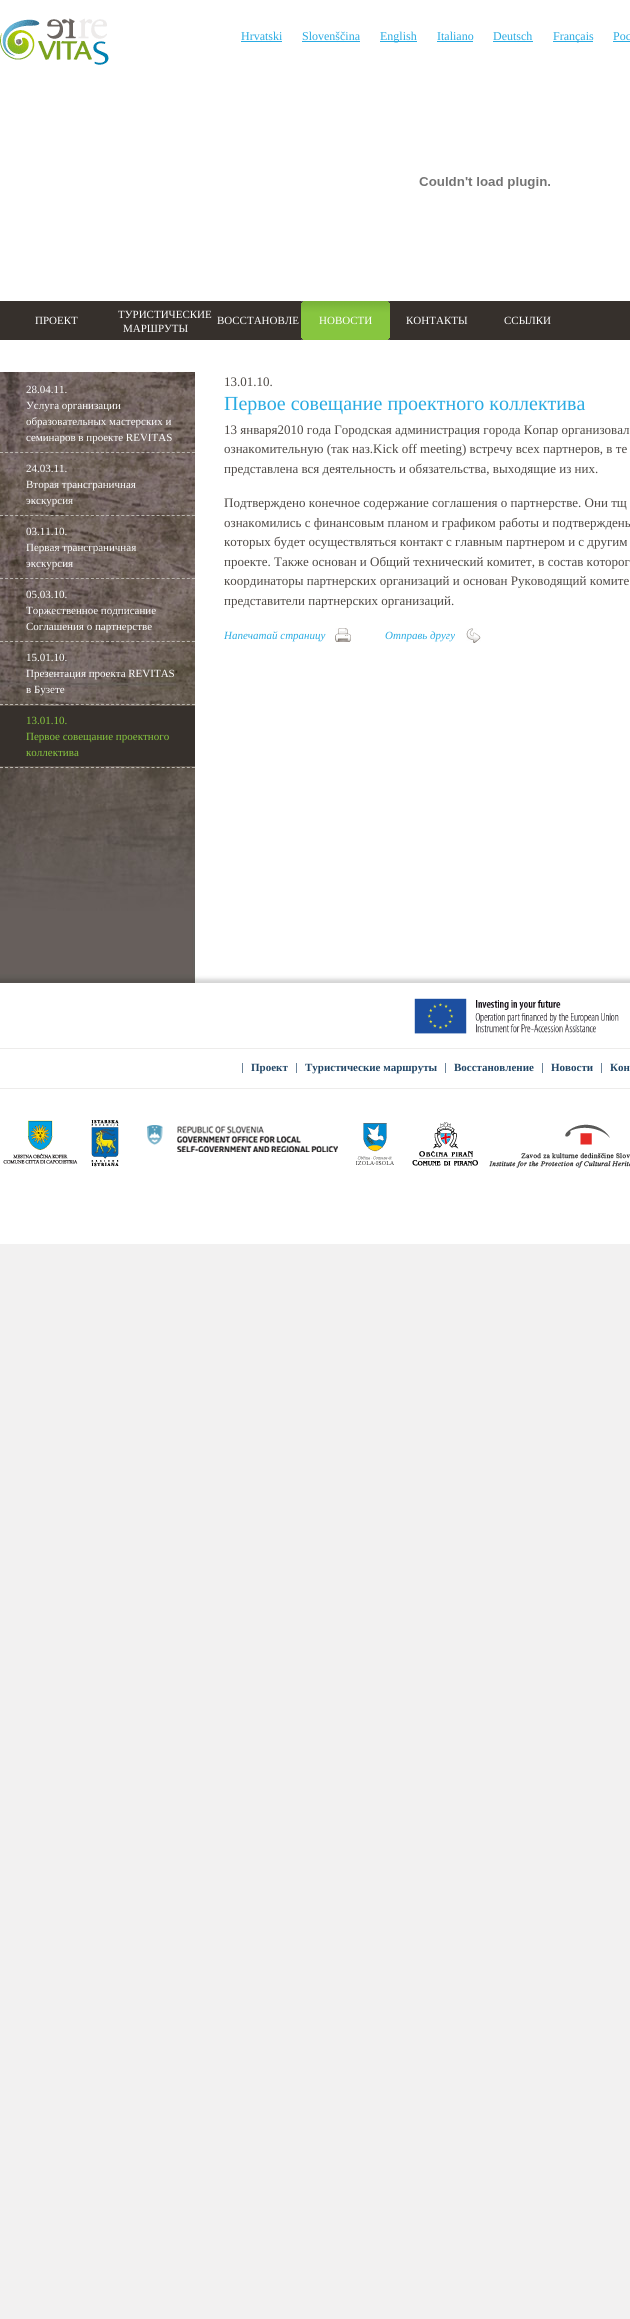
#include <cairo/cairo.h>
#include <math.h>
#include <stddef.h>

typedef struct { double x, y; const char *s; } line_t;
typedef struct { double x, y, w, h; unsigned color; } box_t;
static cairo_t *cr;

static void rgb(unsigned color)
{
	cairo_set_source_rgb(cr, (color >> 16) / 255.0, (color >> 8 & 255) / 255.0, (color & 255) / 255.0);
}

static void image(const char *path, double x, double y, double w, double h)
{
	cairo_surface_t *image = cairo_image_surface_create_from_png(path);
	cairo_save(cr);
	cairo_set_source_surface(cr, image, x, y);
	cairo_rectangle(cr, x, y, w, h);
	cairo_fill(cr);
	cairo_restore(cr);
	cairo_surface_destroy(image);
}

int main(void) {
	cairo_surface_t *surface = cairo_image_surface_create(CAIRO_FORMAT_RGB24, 630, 2319);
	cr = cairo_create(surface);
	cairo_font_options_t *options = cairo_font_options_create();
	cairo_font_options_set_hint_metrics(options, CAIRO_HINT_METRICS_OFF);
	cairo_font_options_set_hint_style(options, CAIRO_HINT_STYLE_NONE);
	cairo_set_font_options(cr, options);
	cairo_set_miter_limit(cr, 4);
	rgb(0xf2f1f1);
	cairo_paint(cr);
	rgb(0xffffff);
	cairo_rectangle(cr, 0, 0, 630, 1157);
	cairo_fill(cr);
	image("img/1.png", 0, 18, 109, 47);
	{
		static const box_t items[] = {
			{241, 41, 41, 1, 0x29abe2},
			{302, 41, 58, 1, 0x29abe2},
			{380, 41, 37, 1, 0x29abe2},
			{437, 41, 36, 1, 0x29abe2},
			{493, 41, 40, 1, 0x29abe2},
			{553, 41, 40, 1, 0x29abe2},
			{613, 41, 17, 1, 0x29abe2},
		};
		for (size_t i = 0; i < sizeof items / sizeof *items; i++) {
			rgb(items[i].color);
			cairo_rectangle(cr, items[i].x, items[i].y, items[i].w, items[i].h);
			cairo_fill(cr);
		}
	}
	image("img/2.png", 419, 177, 131, 12);
	rgb(0x36302c);
	cairo_rectangle(cr, 0, 301, 630, 39);
	cairo_fill(cr);
	image("img/3.png", 303, 301, 85, 39);
	image("img/4.png", 301, 301, 2, 39);
	image("img/5.png", 388, 301, 2, 39);
	image("img/6.png", 0, 911, 195, 63);
	image("img/7.png", 0, 372, 195, 539);
	cairo_new_path(cr);
	cairo_move_to(cr, 0, 452.5);
	cairo_line_to(cr, 195, 452.5);
	rgb(0xbab6b0);
	cairo_set_line_width(cr, 1);
	cairo_set_dash(cr, (double[]){3, 2.05}, 2, 0);
	cairo_stroke(cr);
	cairo_new_path(cr);
	cairo_move_to(cr, 0, 515.5);
	cairo_line_to(cr, 195, 515.5);
	cairo_stroke(cr);
	cairo_new_path(cr);
	cairo_move_to(cr, 0, 578.5);
	cairo_line_to(cr, 195, 578.5);
	cairo_stroke(cr);
	cairo_new_path(cr);
	cairo_move_to(cr, 0, 641.5);
	cairo_line_to(cr, 195, 641.5);
	cairo_stroke(cr);
	cairo_new_path(cr);
	cairo_move_to(cr, 0, 704.5);
	cairo_line_to(cr, 195, 704.5);
	cairo_stroke(cr);
	cairo_new_path(cr);
	cairo_move_to(cr, 0, 767.5);
	cairo_line_to(cr, 195, 767.5);
	cairo_stroke(cr);
	rgb(0x36302c);
	cairo_rectangle(cr, 0, 706, 195, 60);
	cairo_fill(cr);
	image("img/8.png", 335, 628, 16, 14);
	image("img/9.png", 466, 628, 15, 15);
	image("img/10.png", 0, 974, 630, 9);
	rgb(0xedeceb);
	cairo_rectangle(cr, 0, 1048, 630, 1);
	cairo_fill(cr);
	image("img/11.png", 414, 998, 205, 36);
	{
		static const box_t items[] = {
			{0, 1088, 630, 1, 0xedeceb},
			{296, 1063, 1, 10, 0x6c849a},
			{242, 1063, 1, 10, 0x6c849a},
			{445, 1063, 1, 10, 0x6c849a},
			{542, 1063, 1, 10, 0x6c849a},
			{601, 1063, 1, 10, 0x6c849a},
		};
		for (size_t i = 0; i < sizeof items / sizeof *items; i++) {
			rgb(items[i].color);
			cairo_rectangle(cr, items[i].x, items[i].y, items[i].w, items[i].h);
			cairo_fill(cr);
		}
	}
	image("img/18.png", 0, 1157, 630, 87);
	image("img/12.png", 3, 1120, 75, 44);
	image("img/13.png", 91, 1120, 28, 47);
	image("img/14.png", 147, 1125, 191, 27);
	image("img/15.png", 356, 1123, 38, 42);
	image("img/16.png", 412, 1122, 66, 44);
	image("img/17.png", 489, 1124, 141, 44);
	cairo_select_font_face(cr, "Liberation Serif", CAIRO_FONT_SLANT_NORMAL, CAIRO_FONT_WEIGHT_NORMAL);
	cairo_set_font_size(cr, 12);
	rgb(0x29abe2);
	{
		static const line_t items[] = {
			{241, 40, "Hrvatski"},
			{302, 40, "Slovenščina"},
			{380, 40, "English"},
			{437, 40, "Italiano"},
			{493, 40, "Deutsch"},
			{553, 40, "Français"},
			{613, 40, "Рос"},
		};
		for (size_t i = 0; i < sizeof items / sizeof *items; i++) {
			cairo_move_to(cr, items[i].x, items[i].y);
			cairo_show_text(cr, items[i].s);
		}
	}
	cairo_set_font_size(cr, 11);
	rgb(0xffffff);
	{
		static const line_t items[] = {
			{35, 324, "ПРОЕКТ"},
			{118, 318, "ТУРИСТИЧЕСКИЕ"},
			{123, 332, "МАРШРУТЫ"},
			{217, 324, "ВОССТАНОВЛЕ"},
			{319, 324, "НОВОСТИ"},
			{406, 324, "КОНТАКТЫ"},
			{504, 324, "ССЫЛКИ"},
			{26, 393, "28.04.11."},
			{26, 409, "Услуга организации"},
			{26, 425, "образовательных мастерских и"},
			{26, 441, "семинаров в проекте REVITAS"},
			{26, 472, "24.03.11."},
			{26, 488, "Вторая трансграничная"},
			{26, 504, "экскурсия"},
			{26, 535, "03.11.10."},
			{26, 551, "Первая трансграничная"},
			{26, 567, "экскурсия"},
			{26, 598, "05.03.10."},
			{26, 614, "Торжественное подписание"},
			{26, 630, "Соглашения о партнерстве"},
			{26, 661, "15.01.10."},
			{26, 677, "Презентация проекта REVITAS"},
			{26, 693, "в Бузете"},
		};
		for (size_t i = 0; i < sizeof items / sizeof *items; i++) {
			cairo_move_to(cr, items[i].x, items[i].y);
			cairo_show_text(cr, items[i].s);
		}
	}
	rgb(0x87c63f);
	{
		static const line_t items[] = {
			{26, 724, "13.01.10."},
			{26, 740, "Первое совещание проектного"},
			{26, 756, "коллектива"},
		};
		for (size_t i = 0; i < sizeof items / sizeof *items; i++) {
			cairo_move_to(cr, items[i].x, items[i].y);
			cairo_show_text(cr, items[i].s);
		}
	}
	cairo_set_font_size(cr, 13);
	rgb(0x4e4945);
	cairo_move_to(cr, 224, 386);
	cairo_show_text(cr, "13.01.10.");
	cairo_set_font_size(cr, 20);
	rgb(0x29abe2);
	cairo_move_to(cr, 224, 410);
	cairo_show_text(cr, "Первое совещание проектного коллектива");
	cairo_set_font_size(cr, 13);
	rgb(0x4e4945);
	{
		static const line_t items[] = {
			{224, 434, "13 января2010 года Городская администрация города Копар организовал"},
			{224, 453, "ознакомительную (так наз.Kick off meeting) встречу всех партнеров, в те"},
			{224, 473, "представлена вся деятельность и обязательства, выходящие из них."},
			{224, 507, "Подтверждено конечное содержание соглашения о партнерстве. Они тщ"},
			{224, 527, "ознакомились с финансовым планом и графиком работы и подтверждены"},
			{224, 546, "которых будет осуществляться контакт с главным партнером и с другим"},
			{224, 566, "проекте. Также основан и Общий технический комитет, в состав которог"},
			{224, 585, "координаторы партнерских организаций и основан Руководящий комите"},
			{224, 605, "представители партнерских организаций."},
		};
		for (size_t i = 0; i < sizeof items / sizeof *items; i++) {
			cairo_move_to(cr, items[i].x, items[i].y);
			cairo_show_text(cr, items[i].s);
		}
	}
	cairo_select_font_face(cr, "Liberation Serif", CAIRO_FONT_SLANT_ITALIC, CAIRO_FONT_WEIGHT_NORMAL);
	cairo_set_font_size(cr, 11);
	rgb(0x29abe2);
	cairo_move_to(cr, 224, 639);
	cairo_show_text(cr, "Напечатай страницу");
	cairo_move_to(cr, 385, 639);
	cairo_show_text(cr, "Отправь другу");
	cairo_select_font_face(cr, "Liberation Serif", CAIRO_FONT_SLANT_NORMAL, CAIRO_FONT_WEIGHT_BOLD);
	rgb(0x224767);
	{
		static const line_t items[] = {
			{251, 1071, "Проект"},
			{305, 1071, "Туристические маршруты"},
			{454, 1071, "Восстановление"},
			{551, 1071, "Новости"},
			{610, 1071, "Кон"},
		};
		for (size_t i = 0; i < sizeof items / sizeof *items; i++) {
			cairo_move_to(cr, items[i].x, items[i].y);
			cairo_show_text(cr, items[i].s);
		}
	}
	cairo_surface_write_to_png(surface, "page.png");
	cairo_font_options_destroy(options);
	cairo_destroy(cr);
	cairo_surface_destroy(surface);
	return 0;
}
